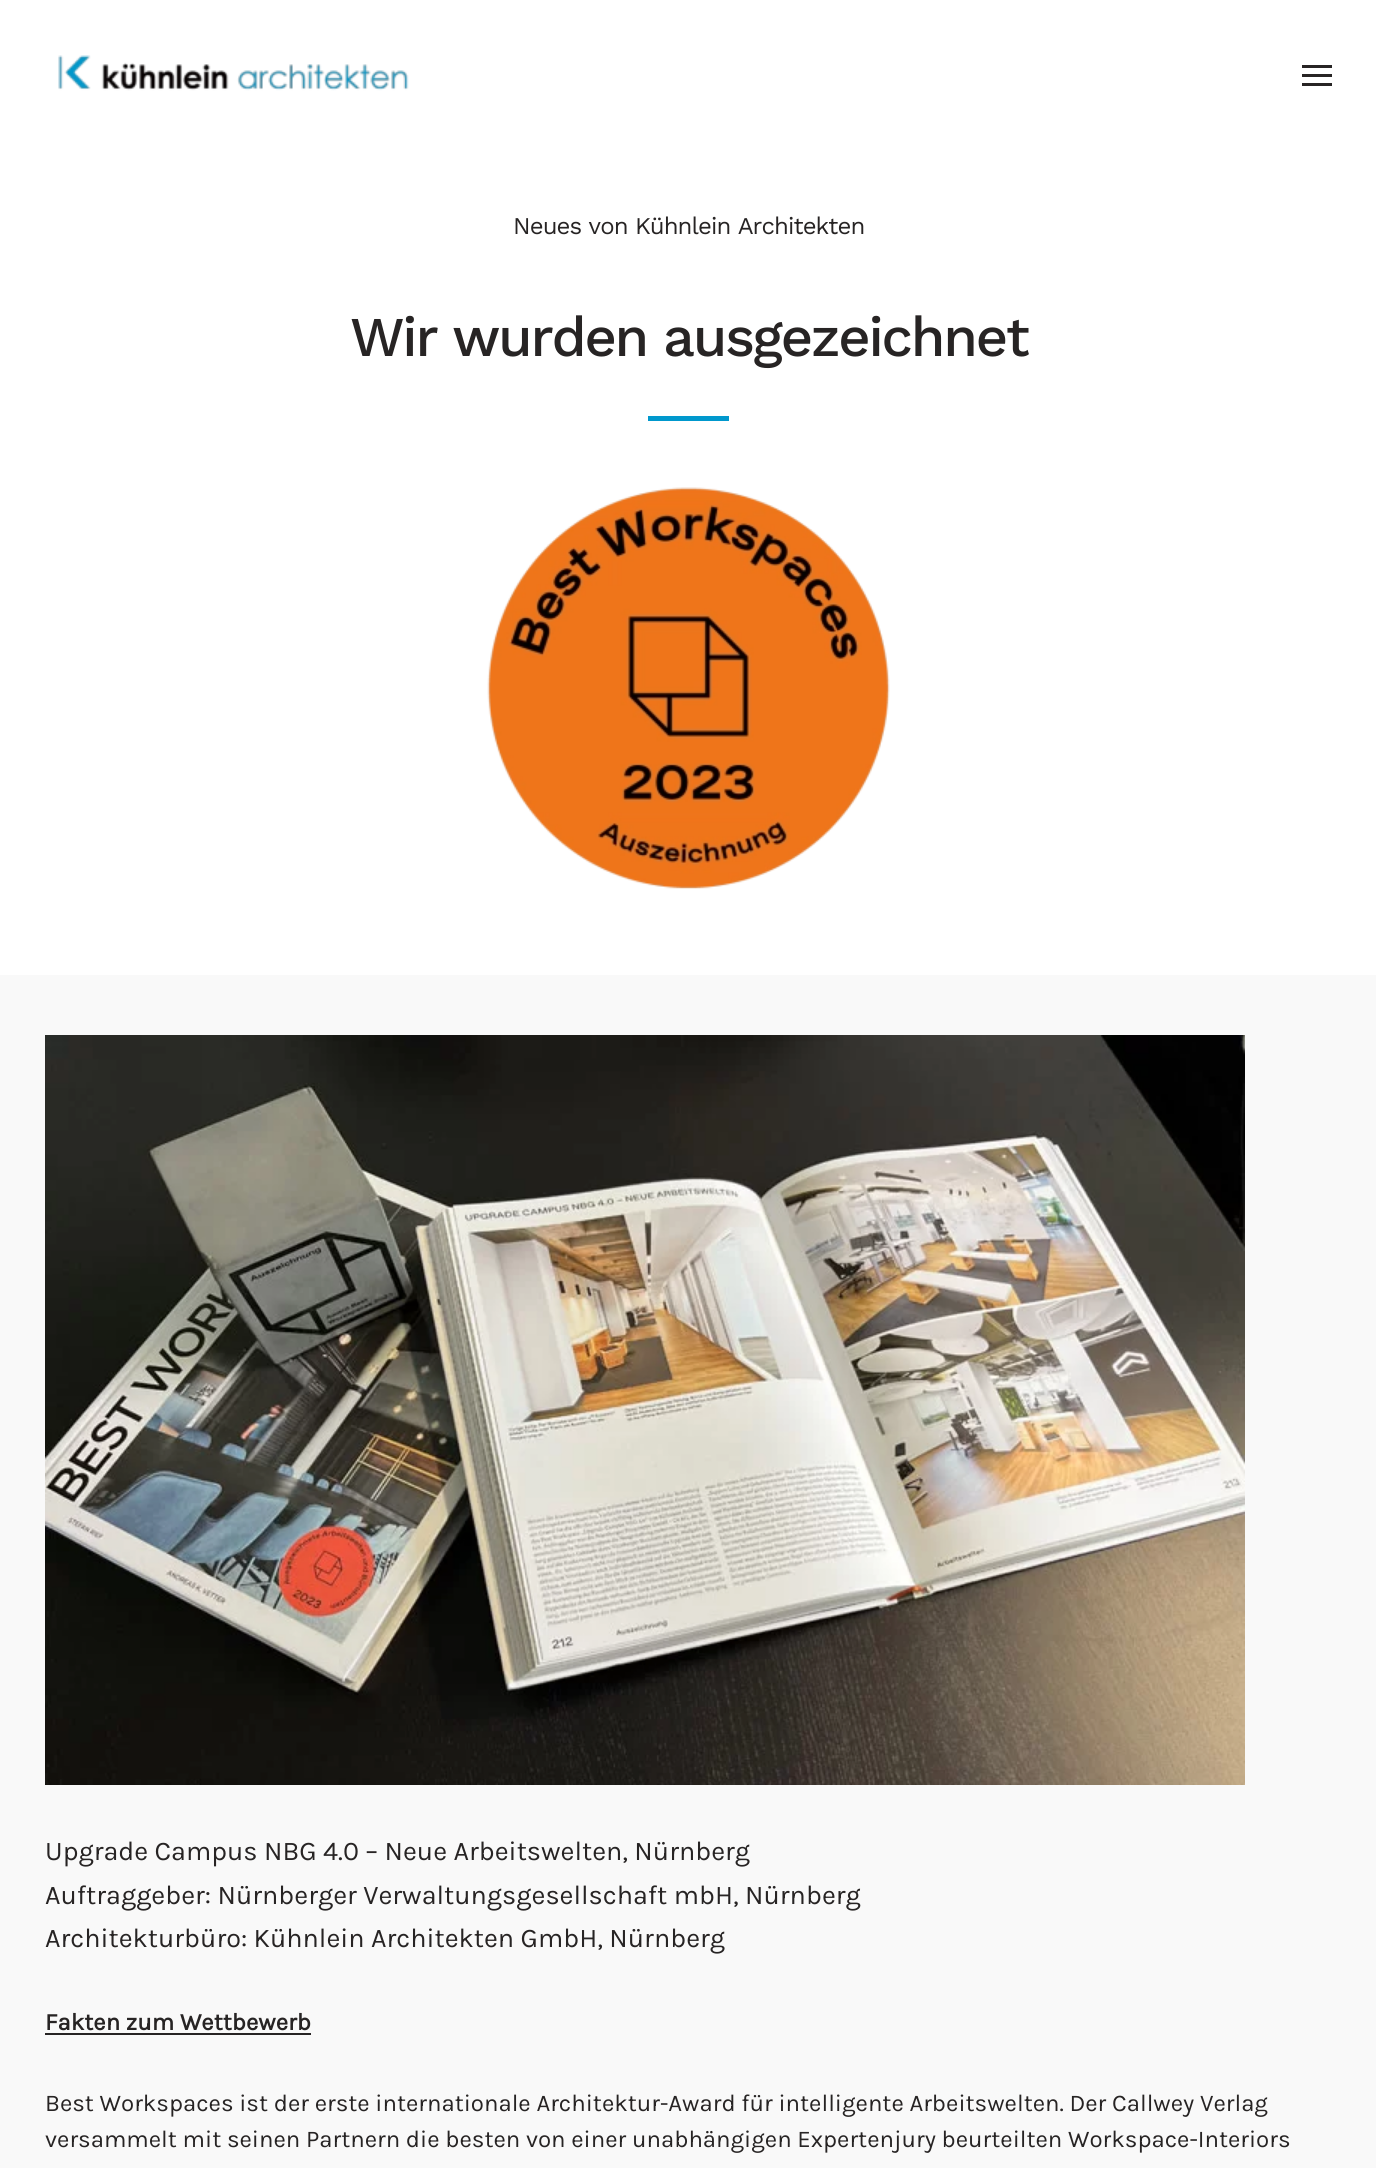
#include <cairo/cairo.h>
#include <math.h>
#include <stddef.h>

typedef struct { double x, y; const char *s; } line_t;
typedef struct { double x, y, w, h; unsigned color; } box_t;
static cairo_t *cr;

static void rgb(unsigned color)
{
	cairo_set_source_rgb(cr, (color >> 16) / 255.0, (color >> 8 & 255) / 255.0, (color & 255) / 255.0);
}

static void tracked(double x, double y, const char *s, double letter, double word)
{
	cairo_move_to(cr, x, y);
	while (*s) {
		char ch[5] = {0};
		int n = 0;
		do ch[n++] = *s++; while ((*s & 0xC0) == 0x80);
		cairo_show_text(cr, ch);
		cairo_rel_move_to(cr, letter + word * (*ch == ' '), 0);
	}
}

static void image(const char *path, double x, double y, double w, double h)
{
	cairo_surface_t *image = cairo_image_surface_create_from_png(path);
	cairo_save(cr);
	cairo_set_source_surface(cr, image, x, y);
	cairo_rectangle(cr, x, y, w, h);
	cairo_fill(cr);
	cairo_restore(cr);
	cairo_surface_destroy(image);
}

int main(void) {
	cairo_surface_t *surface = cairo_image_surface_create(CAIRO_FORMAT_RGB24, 1376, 2168);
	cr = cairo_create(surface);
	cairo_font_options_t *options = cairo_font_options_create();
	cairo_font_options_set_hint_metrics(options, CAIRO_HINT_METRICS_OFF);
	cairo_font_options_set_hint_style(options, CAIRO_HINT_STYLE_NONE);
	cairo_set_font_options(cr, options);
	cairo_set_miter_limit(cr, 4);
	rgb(0xffffff);
	cairo_paint(cr);
	image("img/1.png", 58, 55, 351, 36);
	{
		static const box_t items[] = {
			{1302, 65, 30, 3, 0x272424},
			{1302, 74, 30, 3, 0x272424},
			{1302, 83, 30, 3, 0x272424},
			{648, 416, 81, 5, 0x0098cd},
		};
		for (size_t i = 0; i < sizeof items / sizeof *items; i++) {
			rgb(items[i].color);
			cairo_rectangle(cr, items[i].x, items[i].y, items[i].w, items[i].h);
			cairo_fill(cr);
		}
	}
	image("img/2.png", 487, 487, 403, 402);
	rgb(0xf9f9f9);
	cairo_rectangle(cr, 0, 975, 1376, 1193);
	cairo_fill(cr);
	image("img/3.png", 45, 1035, 1200, 750);
	rgb(0x272424);
	cairo_rectangle(cr, 45, 2033, 266, 2);
	cairo_fill(cr);
	cairo_select_font_face(cr, "Work Sans", CAIRO_FONT_SLANT_NORMAL, CAIRO_FONT_WEIGHT_NORMAL);
	cairo_set_font_size(cr, 24);
	tracked(513, 234, "Neues von Kühnlein Architekten", -0.9, 0);
	cairo_select_font_face(cr, "Work Sans Medium", CAIRO_FONT_SLANT_NORMAL, CAIRO_FONT_WEIGHT_NORMAL);
	cairo_set_font_size(cr, 56.1);
	tracked(350, 356, "Wir wurden ausgezeichnet", -2.25, 0);
	cairo_select_font_face(cr, "Karla", CAIRO_FONT_SLANT_NORMAL, CAIRO_FONT_WEIGHT_NORMAL);
	cairo_set_font_size(cr, 27);
	{
		static const line_t items[] = {
			{45, 1860, "Upgrade Campus NBG 4.0 – Neue Arbeitswelten, Nürnberg"},
			{45, 1904, "Auftraggeber: Nürnberger Verwaltungsgesellschaft mbH, Nürnberg"},
			{45, 1947, "Architekturbüro: Kühnlein Architekten GmbH, Nürnberg"},
		};
		for (size_t i = 0; i < sizeof items / sizeof *items; i++) {
			cairo_move_to(cr, items[i].x, items[i].y);
			cairo_show_text(cr, items[i].s);
		}
	}
	cairo_select_font_face(cr, "Karla", CAIRO_FONT_SLANT_NORMAL, CAIRO_FONT_WEIGHT_BOLD);
	cairo_set_font_size(cr, 24);
	cairo_move_to(cr, 45, 2030);
	cairo_show_text(cr, "Fakten zum Wettbewerb");
	cairo_select_font_face(cr, "Karla", CAIRO_FONT_SLANT_NORMAL, CAIRO_FONT_WEIGHT_NORMAL);
	cairo_move_to(cr, 45, 2111);
	cairo_show_text(cr, "Best Workspaces ist der erste internationale Architektur-Award für intelligente Arbeitswelten. Der Callwey Verlag");
	cairo_move_to(cr, 45, 2147);
	cairo_show_text(cr, "versammelt mit seinen Partnern die besten von einer unabhängigen Expertenjury beurteilten Workspace-Interiors");
	cairo_surface_write_to_png(surface, "page.png");
	cairo_font_options_destroy(options);
	cairo_destroy(cr);
	cairo_surface_destroy(surface);
	return 0;
}
